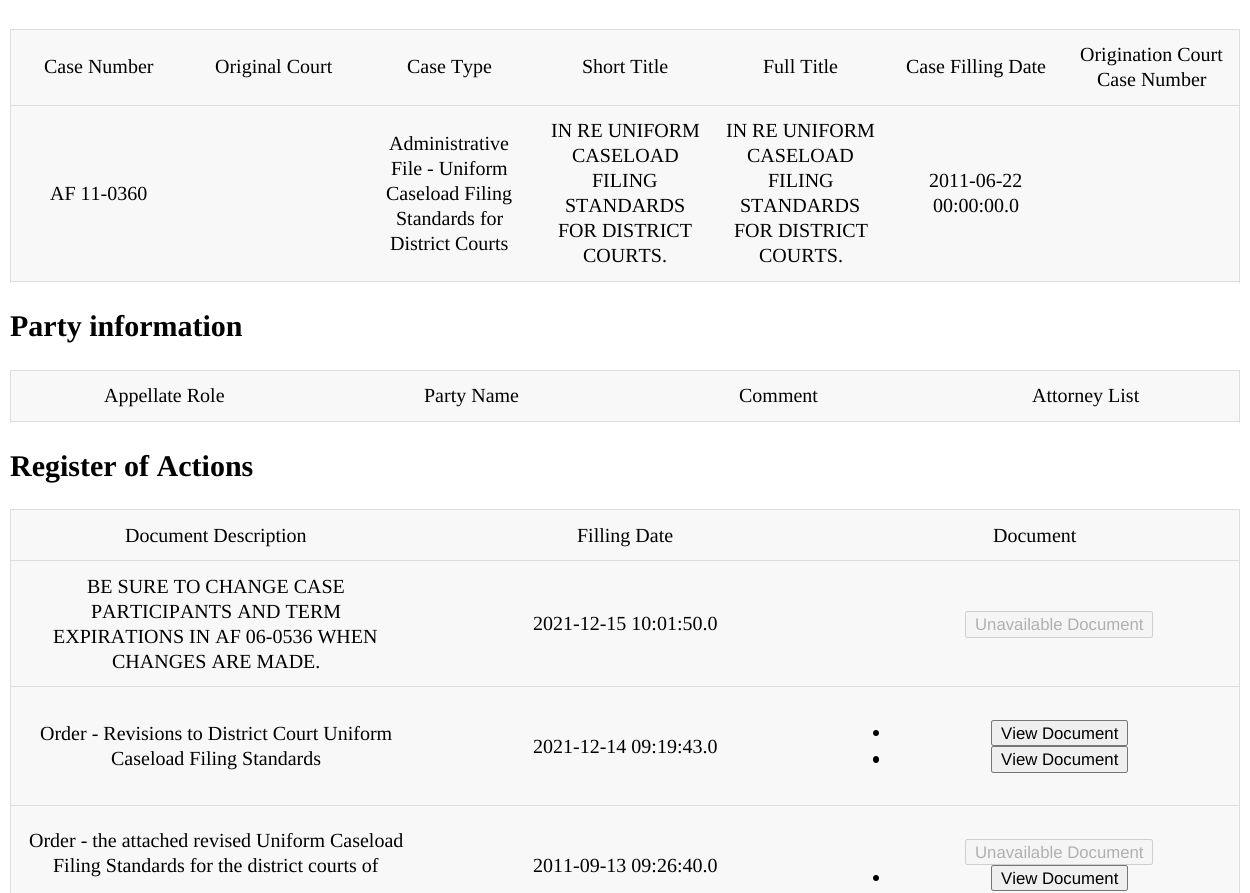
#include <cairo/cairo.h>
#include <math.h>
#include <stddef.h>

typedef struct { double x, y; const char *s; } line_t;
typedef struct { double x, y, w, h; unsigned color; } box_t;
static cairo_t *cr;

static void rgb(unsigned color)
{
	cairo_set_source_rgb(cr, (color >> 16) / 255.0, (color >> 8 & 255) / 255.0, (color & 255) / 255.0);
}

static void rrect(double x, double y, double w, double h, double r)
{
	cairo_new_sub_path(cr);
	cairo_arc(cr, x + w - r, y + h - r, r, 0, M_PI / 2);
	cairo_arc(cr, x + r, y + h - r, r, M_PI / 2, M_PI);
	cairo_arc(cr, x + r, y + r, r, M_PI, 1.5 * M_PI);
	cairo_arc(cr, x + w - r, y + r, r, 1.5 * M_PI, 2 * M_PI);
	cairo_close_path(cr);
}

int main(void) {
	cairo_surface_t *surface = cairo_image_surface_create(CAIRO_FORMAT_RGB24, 1250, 893);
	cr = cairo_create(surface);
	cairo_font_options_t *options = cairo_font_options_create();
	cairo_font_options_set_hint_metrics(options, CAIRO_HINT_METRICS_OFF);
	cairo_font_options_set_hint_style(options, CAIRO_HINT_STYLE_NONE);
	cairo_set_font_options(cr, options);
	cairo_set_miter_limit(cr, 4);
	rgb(0xffffff);
	cairo_paint(cr);
	{
		static const box_t items[] = {
			{11, 30, 1228, 75, 0xf8f8f8},
			{10, 29, 1230, 1, 0xdddddd},
			{10, 105, 1230, 1, 0xdddddd},
			{1239, 105, 1, 178, 0xdddddd},
			{1239, 29, 1, 77, 0xdddddd},
			{10, 281, 1230, 1, 0xdddddd},
			{10, 105, 1, 178, 0xdddddd},
			{10, 29, 1, 77, 0xdddddd},
			{11, 106, 1228, 175, 0xf8f8f8},
			{11, 371, 1228, 50, 0xf8f8f8},
			{10, 370, 1230, 1, 0xdddddd},
			{1239, 370, 1, 53, 0xdddddd},
			{10, 421, 1230, 1, 0xdddddd},
			{10, 370, 1, 53, 0xdddddd},
			{11, 510, 1228, 50, 0xf8f8f8},
			{10, 509, 1230, 1, 0xdddddd},
			{10, 560, 1230, 1, 0xdddddd},
			{11, 561, 1228, 244, 0xf8f8f8},
			{10, 686, 1230, 1, 0xdddddd},
			{10, 805, 1230, 1, 0xdddddd},
			{1239, 805, 1, 88, 0xdddddd},
			{1239, 686, 1, 120, 0xdddddd},
			{1239, 560, 1, 128, 0xdddddd},
			{1239, 509, 1, 52, 0xdddddd},
			{10, 805, 1, 88, 0xdddddd},
			{10, 686, 1, 120, 0xdddddd},
			{10, 560, 1, 128, 0xdddddd},
			{10, 509, 1, 52, 0xdddddd},
		};
		for (size_t i = 0; i < sizeof items / sizeof *items; i++) {
			rgb(items[i].color);
			cairo_rectangle(cr, items[i].x, items[i].y, items[i].w, items[i].h);
			cairo_fill(cr);
		}
	}
	rgb(0xf5f5f5);
	rrect(965.5, 611.5, 187, 26, 2);
	cairo_fill_preserve(cr);
	rgb(0xcfcfcf);
	cairo_set_line_width(cr, 1);
	cairo_stroke(cr);
	rgb(0x000000);
	cairo_arc(cr, 876, 733, 3, 0, 2 * M_PI);
	cairo_fill(cr);
	rgb(0xefefef);
	rrect(991.5, 720.5, 136, 25, 2);
	cairo_fill_preserve(cr);
	rgb(0x767676);
	cairo_stroke(cr);
	rgb(0x000000);
	rrect(873, 756, 6, 7, 3);
	cairo_fill(cr);
	rgb(0xefefef);
	rrect(991.5, 746.5, 136, 26, 2);
	cairo_fill_preserve(cr);
	rgb(0x767676);
	cairo_stroke(cr);
	rgb(0xf8f8f8);
	cairo_rectangle(cr, 11, 806, 1228, 87);
	cairo_fill(cr);
	rgb(0xf5f5f5);
	rrect(965.5, 839.5, 187, 25, 2);
	cairo_fill_preserve(cr);
	rgb(0xcfcfcf);
	cairo_stroke(cr);
	rgb(0x000000);
	cairo_arc(cr, 876, 878, 3, 0, 2 * M_PI);
	cairo_fill(cr);
	rgb(0xefefef);
	rrect(991.5, 865.5, 136, 25, 2);
	cairo_fill_preserve(cr);
	rgb(0x767676);
	cairo_stroke(cr);
	cairo_select_font_face(cr, "Liberation Serif", CAIRO_FONT_SLANT_NORMAL, CAIRO_FONT_WEIGHT_NORMAL);
	cairo_set_font_size(cr, 20);
	rgb(0x000000);
	{
		static const line_t items[] = {
			{44, 73, "Case Number"},
			{215, 73, "Original Court"},
			{407, 73, "Case Type"},
			{582, 73, "Short Title"},
			{763, 73, "Full Title"},
			{906, 73, "Case Filling Date"},
			{1080, 61, "Origination Court"},
			{1097, 86, "Case Number"},
			{50, 200, "AF 11-0360"},
			{389, 150, "Administrative"},
			{391, 175, "File - Uniform"},
			{386, 200, "Caseload Filing"},
			{396, 225, "Standards for"},
			{390, 250, "District Courts"},
			{551, 137, "IN RE UNIFORM"},
			{572, 162, "CASELOAD"},
			{592, 187, "FILING"},
			{565, 212, "STANDARDS"},
			{558, 237, "FOR DISTRICT"},
			{583, 262, "COURTS."},
			{726, 137, "IN RE UNIFORM"},
			{747, 162, "CASELOAD"},
			{768, 187, "FILING"},
			{740, 212, "STANDARDS"},
			{734, 237, "FOR DISTRICT"},
			{759, 262, "COURTS."},
			{929, 187, "2011-06-22"},
			{933, 212, "00:00:00.0"},
		};
		for (size_t i = 0; i < sizeof items / sizeof *items; i++) {
			cairo_move_to(cr, items[i].x, items[i].y);
			cairo_show_text(cr, items[i].s);
		}
	}
	cairo_select_font_face(cr, "Liberation Serif", CAIRO_FONT_SLANT_NORMAL, CAIRO_FONT_WEIGHT_BOLD);
	cairo_set_font_size(cr, 30);
	cairo_move_to(cr, 10, 336);
	cairo_show_text(cr, "Party information");
	cairo_select_font_face(cr, "Liberation Serif", CAIRO_FONT_SLANT_NORMAL, CAIRO_FONT_WEIGHT_NORMAL);
	cairo_set_font_size(cr, 20);
	{
		static const line_t items[] = {
			{104, 402, "Appellate Role"},
			{424, 402, "Party Name"},
			{739, 402, "Comment"},
			{1032, 402, "Attorney List"},
		};
		for (size_t i = 0; i < sizeof items / sizeof *items; i++) {
			cairo_move_to(cr, items[i].x, items[i].y);
			cairo_show_text(cr, items[i].s);
		}
	}
	cairo_select_font_face(cr, "Liberation Serif", CAIRO_FONT_SLANT_NORMAL, CAIRO_FONT_WEIGHT_BOLD);
	cairo_set_font_size(cr, 30);
	cairo_move_to(cr, 10, 476);
	cairo_show_text(cr, "Register of Actions");
	cairo_select_font_face(cr, "Liberation Serif", CAIRO_FONT_SLANT_NORMAL, CAIRO_FONT_WEIGHT_NORMAL);
	cairo_set_font_size(cr, 20);
	{
		static const line_t items[] = {
			{125, 542, "Document Description"},
			{577, 542, "Filling Date"},
			{993, 542, "Document"},
			{87, 593, "BE SURE TO CHANGE CASE"},
			{91, 618, "PARTICIPANTS AND TERM"},
			{53, 643, "EXPIRATIONS IN AF 06-0536 WHEN"},
			{112, 668, "CHANGES ARE MADE."},
			{533, 630, "2021-12-15 10:01:50.0"},
		};
		for (size_t i = 0; i < sizeof items / sizeof *items; i++) {
			cairo_move_to(cr, items[i].x, items[i].y);
			cairo_show_text(cr, items[i].s);
		}
	}
	cairo_select_font_face(cr, "Liberation Sans", CAIRO_FONT_SLANT_NORMAL, CAIRO_FONT_WEIGHT_NORMAL);
	cairo_set_font_size(cr, 16.75);
	rgb(0xb0b0b0);
	cairo_move_to(cr, 975, 630);
	cairo_show_text(cr, "Unavailable Document");
	cairo_select_font_face(cr, "Liberation Serif", CAIRO_FONT_SLANT_NORMAL, CAIRO_FONT_WEIGHT_NORMAL);
	cairo_set_font_size(cr, 20);
	rgb(0x000000);
	{
		static const line_t items[] = {
			{40, 740, "Order - Revisions to District Court Uniform"},
			{111, 765, "Caseload Filing Standards"},
			{533, 753, "2021-12-14 09:19:43.0"},
		};
		for (size_t i = 0; i < sizeof items / sizeof *items; i++) {
			cairo_move_to(cr, items[i].x, items[i].y);
			cairo_show_text(cr, items[i].s);
		}
	}
	cairo_select_font_face(cr, "Liberation Sans", CAIRO_FONT_SLANT_NORMAL, CAIRO_FONT_WEIGHT_NORMAL);
	cairo_set_font_size(cr, 16.75);
	cairo_move_to(cr, 1001, 739);
	cairo_show_text(cr, "View Document");
	cairo_move_to(cr, 1001, 765);
	cairo_show_text(cr, "View Document");
	cairo_select_font_face(cr, "Liberation Serif", CAIRO_FONT_SLANT_NORMAL, CAIRO_FONT_WEIGHT_NORMAL);
	cairo_set_font_size(cr, 20);
	{
		static const line_t items[] = {
			{29, 847, "Order - the attached revised Uniform Caseload"},
			{53, 872, "Filing Standards for the district courts of"},
			{533, 872, "2011-09-13 09:26:40.0"},
		};
		for (size_t i = 0; i < sizeof items / sizeof *items; i++) {
			cairo_move_to(cr, items[i].x, items[i].y);
			cairo_show_text(cr, items[i].s);
		}
	}
	cairo_select_font_face(cr, "Liberation Sans", CAIRO_FONT_SLANT_NORMAL, CAIRO_FONT_WEIGHT_NORMAL);
	cairo_set_font_size(cr, 16.75);
	rgb(0xb0b0b0);
	cairo_move_to(cr, 975, 858);
	cairo_show_text(cr, "Unavailable Document");
	rgb(0x000000);
	cairo_move_to(cr, 1001, 884);
	cairo_show_text(cr, "View Document");
	cairo_surface_write_to_png(surface, "page.png");
	cairo_font_options_destroy(options);
	cairo_destroy(cr);
	cairo_surface_destroy(surface);
	return 0;
}
